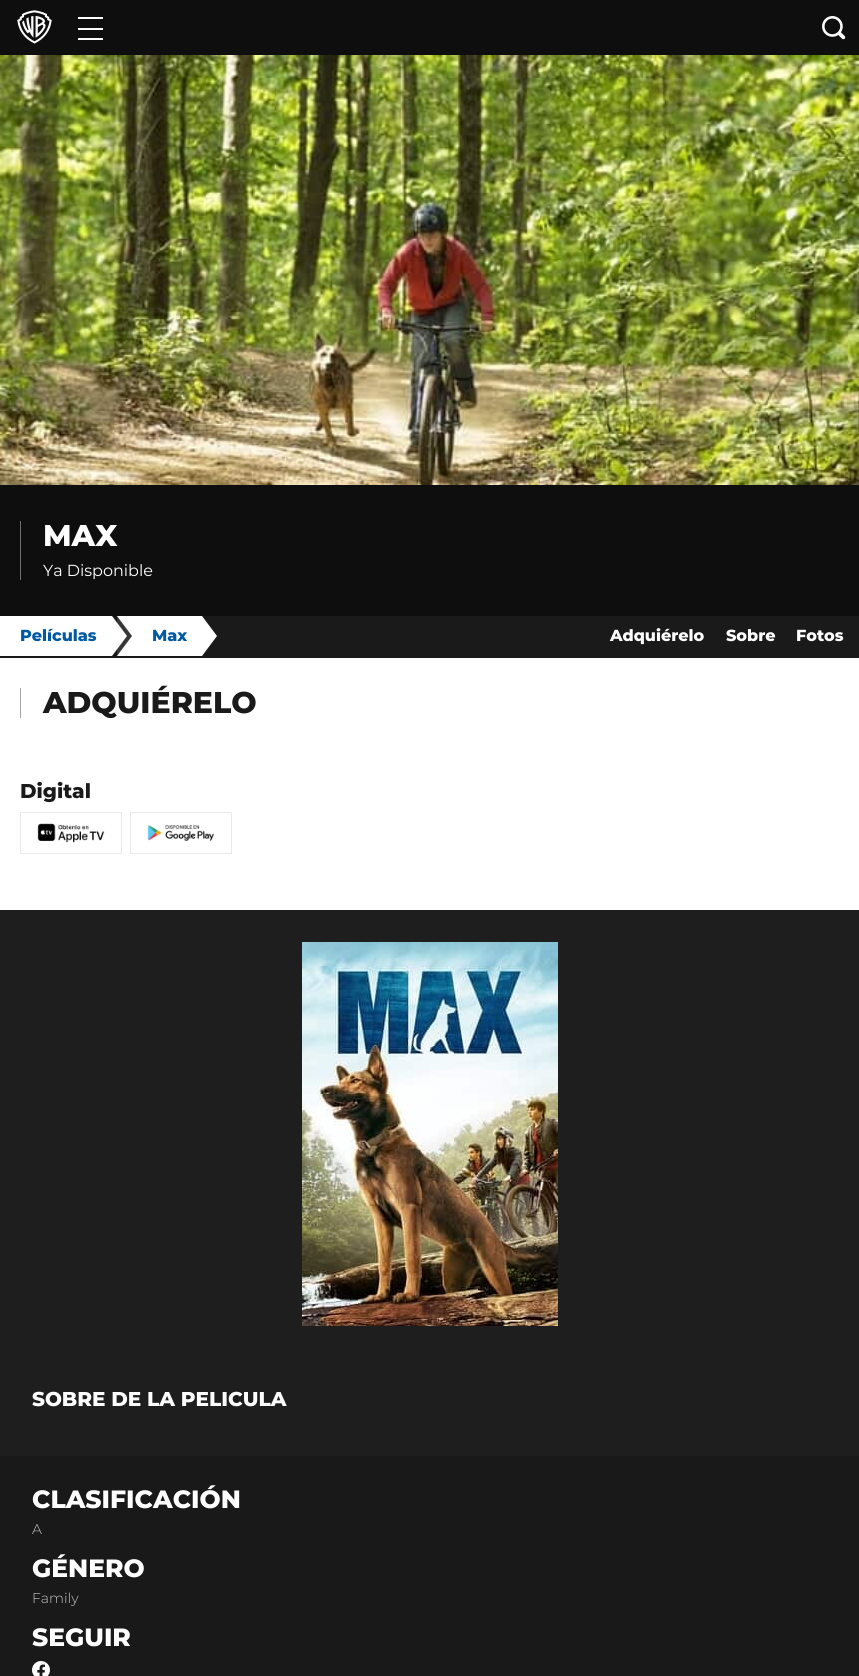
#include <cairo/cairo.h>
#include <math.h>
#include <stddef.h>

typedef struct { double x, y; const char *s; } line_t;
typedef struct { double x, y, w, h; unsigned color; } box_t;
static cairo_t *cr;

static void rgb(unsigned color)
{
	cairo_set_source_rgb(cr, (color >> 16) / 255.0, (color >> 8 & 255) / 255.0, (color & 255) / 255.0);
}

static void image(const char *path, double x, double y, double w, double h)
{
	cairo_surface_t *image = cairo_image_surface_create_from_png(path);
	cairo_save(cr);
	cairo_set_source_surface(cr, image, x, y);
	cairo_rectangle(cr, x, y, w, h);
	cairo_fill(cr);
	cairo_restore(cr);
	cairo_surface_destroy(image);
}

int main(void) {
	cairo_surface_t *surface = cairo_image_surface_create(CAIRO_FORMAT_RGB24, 859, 1676);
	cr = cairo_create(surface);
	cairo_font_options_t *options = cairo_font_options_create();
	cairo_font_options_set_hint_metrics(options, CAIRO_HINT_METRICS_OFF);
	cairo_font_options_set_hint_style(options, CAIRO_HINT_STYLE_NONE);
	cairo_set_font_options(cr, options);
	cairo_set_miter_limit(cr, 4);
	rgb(0x0e0e0e);
	cairo_paint(cr);
	image("img/1.png", 17, 10, 35, 34);
	{
		static const box_t items[] = {
			{78, 17, 25, 2, 0xfdfdfd},
			{78, 28, 25, 2, 0xfdfdfd},
			{78, 38, 25, 2, 0xfdfdfd},
		};
		for (size_t i = 0; i < sizeof items / sizeof *items; i++) {
			rgb(items[i].color);
			cairo_rectangle(cr, items[i].x, items[i].y, items[i].w, items[i].h);
			cairo_fill(cr);
		}
	}
	image("img/2.png", 822, 16, 24, 24);
	image("img/3.png", 0, 55, 859, 430);
	{
		static const box_t items[] = {
			{20, 521, 1, 59, 0x6e6e6e},
			{0, 616, 859, 42, 0x1a1a1a},
			{0, 616, 112, 40, 0xffffff},
			{117, 616, 85, 40, 0xffffff},
		};
		for (size_t i = 0; i < sizeof items / sizeof *items; i++) {
			rgb(items[i].color);
			cairo_rectangle(cr, items[i].x, items[i].y, items[i].w, items[i].h);
			cairo_fill(cr);
		}
	}
	rgb(0x373737);
	cairo_new_path(cr);
	cairo_move_to(cr, 117, 656);
	cairo_line_to(cr, 117, 616);
	cairo_line_to(cr, 132, 636);
	cairo_close_path(cr);
	cairo_fill(cr);
	rgb(0xffffff);
	cairo_new_path(cr);
	cairo_move_to(cr, 112, 656);
	cairo_line_to(cr, 112, 616);
	cairo_line_to(cr, 127, 636);
	cairo_close_path(cr);
	cairo_fill(cr);
	cairo_new_path(cr);
	cairo_move_to(cr, 202, 656);
	cairo_line_to(cr, 202, 616);
	cairo_line_to(cr, 217, 636);
	cairo_close_path(cr);
	cairo_fill(cr);
	cairo_rectangle(cr, 0, 658, 859, 252);
	cairo_fill(cr);
	rgb(0xa5a5a5);
	cairo_rectangle(cr, 20, 688, 1, 30);
	cairo_fill(cr);
	cairo_rectangle(cr, 20.5, 812.5, 101, 41);
	rgb(0xeaeaea);
	cairo_set_line_width(cr, 1);
	cairo_stroke(cr);
	image("img/4.png", 37, 823, 68, 20);
	cairo_rectangle(cr, 130.5, 812.5, 101, 41);
	cairo_stroke(cr);
	image("img/5.png", 147, 825, 68, 16);
	rgb(0x1e1e1e);
	cairo_rectangle(cr, 0, 910, 859, 546);
	cairo_fill(cr);
	image("img/6.png", 302, 942, 256, 384);
	rgb(0x191919);
	cairo_rectangle(cr, 0, 1456, 859, 220);
	cairo_fill(cr);
	image("img/7.png", 32, 1661, 18, 15);
	cairo_select_font_face(cr, "Montserrat ExtraBold", CAIRO_FONT_SLANT_NORMAL, CAIRO_FONT_WEIGHT_NORMAL);
	cairo_set_font_size(cr, 30);
	rgb(0xffffff);
	cairo_move_to(cr, 43, 546);
	cairo_show_text(cr, "MAX");
	cairo_select_font_face(cr, "Montserrat", CAIRO_FONT_SLANT_NORMAL, CAIRO_FONT_WEIGHT_NORMAL);
	cairo_set_font_size(cr, 16);
	cairo_move_to(cr, 43, 576);
	cairo_show_text(cr, "Ya Disponible");
	cairo_select_font_face(cr, "Montserrat ExtraBold", CAIRO_FONT_SLANT_NORMAL, CAIRO_FONT_WEIGHT_NORMAL);
	rgb(0x005aa3);
	cairo_move_to(cr, 20, 641);
	cairo_show_text(cr, "Películas");
	cairo_move_to(cr, 152, 641);
	cairo_show_text(cr, "Max");
	rgb(0xffffff);
	{
		static const line_t items[] = {
			{610, 641, "Adquiérelo"},
			{726, 641, "Sobre"},
			{796, 641, "Fotos"},
		};
		for (size_t i = 0; i < sizeof items / sizeof *items; i++) {
			cairo_move_to(cr, items[i].x, items[i].y);
			cairo_show_text(cr, items[i].s);
		}
	}
	cairo_set_font_size(cr, 30);
	rgb(0x1a1a1a);
	cairo_move_to(cr, 43, 713);
	cairo_show_text(cr, "ADQUIÉRELO");
	cairo_set_font_size(cr, 20);
	cairo_move_to(cr, 20, 798);
	cairo_show_text(cr, "Digital");
	rgb(0xffffff);
	cairo_move_to(cr, 32, 1406);
	cairo_show_text(cr, "SOBRE DE LA PELICULA");
	cairo_set_font_size(cr, 25);
	cairo_move_to(cr, 32, 1508);
	cairo_show_text(cr, "CLASIFICACIÓN");
	cairo_select_font_face(cr, "Montserrat Light", CAIRO_FONT_SLANT_NORMAL, CAIRO_FONT_WEIGHT_NORMAL);
	cairo_set_font_size(cr, 14);
	rgb(0xc6c6c6);
	cairo_move_to(cr, 32, 1534);
	cairo_show_text(cr, "A");
	cairo_select_font_face(cr, "Montserrat ExtraBold", CAIRO_FONT_SLANT_NORMAL, CAIRO_FONT_WEIGHT_NORMAL);
	cairo_set_font_size(cr, 25);
	rgb(0xffffff);
	cairo_move_to(cr, 32, 1577);
	cairo_show_text(cr, "GÉNERO");
	cairo_select_font_face(cr, "Montserrat Light", CAIRO_FONT_SLANT_NORMAL, CAIRO_FONT_WEIGHT_NORMAL);
	cairo_set_font_size(cr, 14);
	rgb(0xc6c6c6);
	cairo_move_to(cr, 32, 1603);
	cairo_show_text(cr, "Family");
	cairo_select_font_face(cr, "Montserrat ExtraBold", CAIRO_FONT_SLANT_NORMAL, CAIRO_FONT_WEIGHT_NORMAL);
	cairo_set_font_size(cr, 25);
	rgb(0xffffff);
	cairo_move_to(cr, 32, 1646);
	cairo_show_text(cr, "SEGUIR");
	cairo_surface_write_to_png(surface, "page.png");
	cairo_font_options_destroy(options);
	cairo_destroy(cr);
	cairo_surface_destroy(surface);
	return 0;
}
